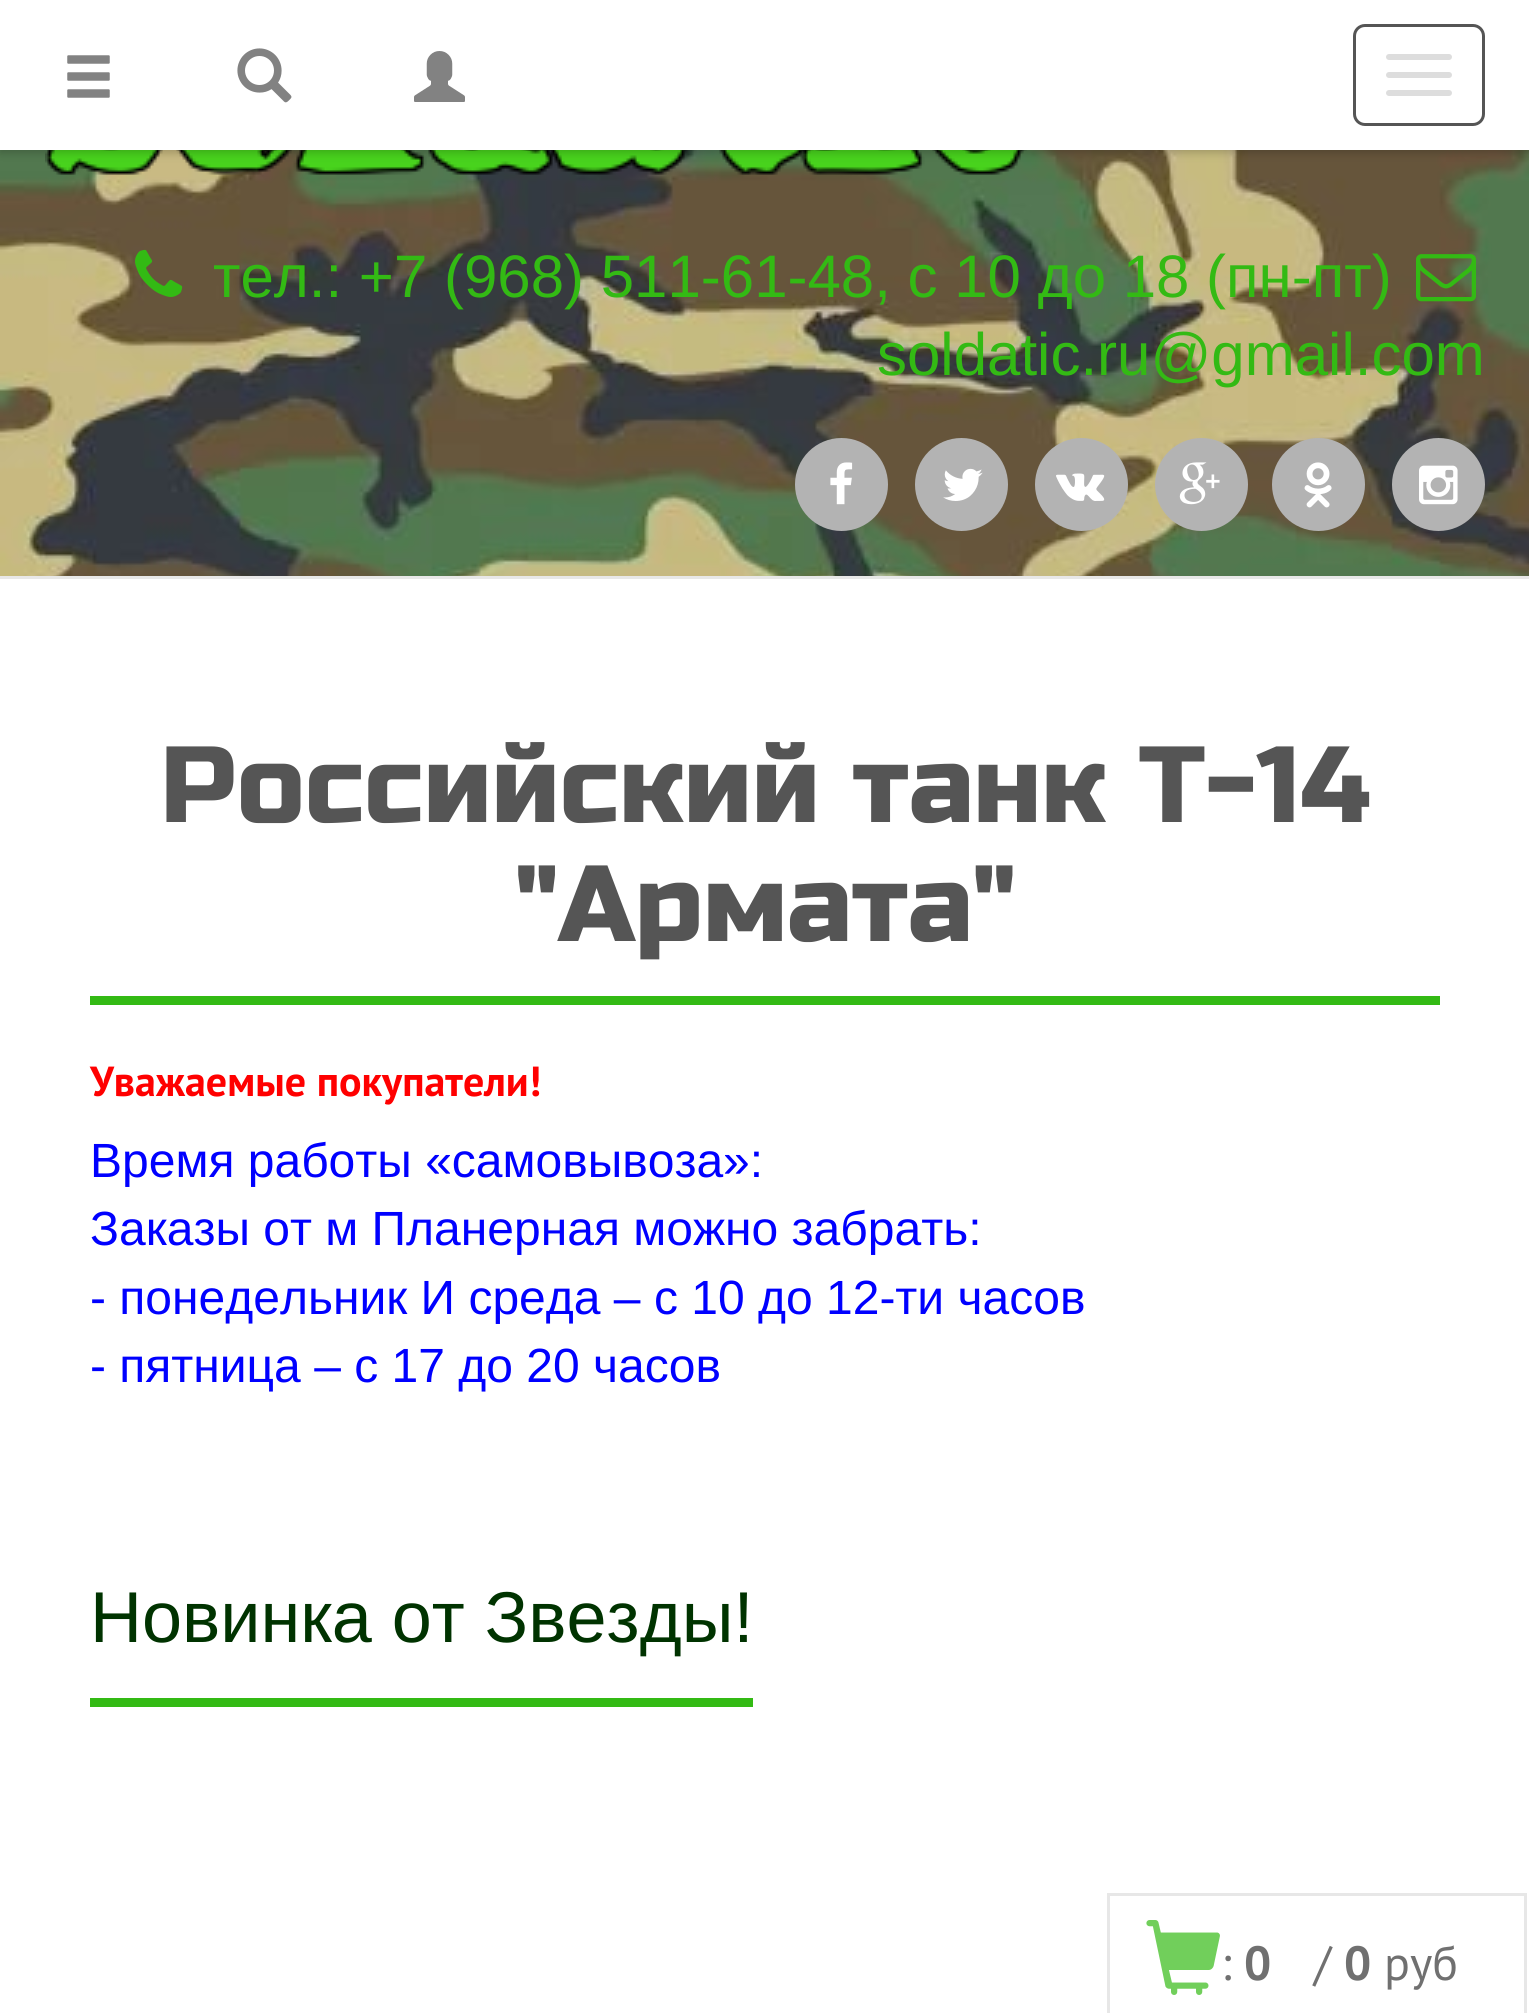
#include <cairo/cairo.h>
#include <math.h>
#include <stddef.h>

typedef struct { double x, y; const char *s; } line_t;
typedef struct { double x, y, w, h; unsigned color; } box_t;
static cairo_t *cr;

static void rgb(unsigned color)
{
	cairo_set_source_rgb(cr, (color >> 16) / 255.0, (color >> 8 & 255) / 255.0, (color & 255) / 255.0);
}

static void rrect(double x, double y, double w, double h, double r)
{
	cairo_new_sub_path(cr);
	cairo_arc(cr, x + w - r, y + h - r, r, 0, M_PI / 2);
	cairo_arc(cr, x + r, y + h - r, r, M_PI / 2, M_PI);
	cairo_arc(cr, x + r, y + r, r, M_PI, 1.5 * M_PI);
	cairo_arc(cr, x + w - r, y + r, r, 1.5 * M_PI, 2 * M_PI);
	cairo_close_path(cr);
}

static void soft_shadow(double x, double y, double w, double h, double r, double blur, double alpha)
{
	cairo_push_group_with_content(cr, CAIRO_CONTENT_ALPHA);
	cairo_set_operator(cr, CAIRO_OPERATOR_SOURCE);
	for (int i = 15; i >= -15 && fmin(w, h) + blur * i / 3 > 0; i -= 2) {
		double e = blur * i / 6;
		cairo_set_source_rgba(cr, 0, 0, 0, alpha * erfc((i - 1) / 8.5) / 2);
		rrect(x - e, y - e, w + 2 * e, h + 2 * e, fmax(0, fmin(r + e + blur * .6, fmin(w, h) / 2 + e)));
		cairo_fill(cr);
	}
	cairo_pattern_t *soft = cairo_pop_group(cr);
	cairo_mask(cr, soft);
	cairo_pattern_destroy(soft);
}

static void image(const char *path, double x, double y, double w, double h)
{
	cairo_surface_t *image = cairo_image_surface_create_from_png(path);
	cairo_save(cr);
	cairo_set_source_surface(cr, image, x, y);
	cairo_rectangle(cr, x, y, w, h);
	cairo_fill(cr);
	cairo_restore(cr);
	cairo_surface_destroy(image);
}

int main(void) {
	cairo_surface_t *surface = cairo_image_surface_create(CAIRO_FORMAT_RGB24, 1529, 2013);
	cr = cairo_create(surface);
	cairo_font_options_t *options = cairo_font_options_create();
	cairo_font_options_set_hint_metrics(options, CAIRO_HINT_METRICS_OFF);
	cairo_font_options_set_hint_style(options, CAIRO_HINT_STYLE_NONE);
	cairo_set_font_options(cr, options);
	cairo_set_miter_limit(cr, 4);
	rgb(0xffffff);
	cairo_paint(cr);
	image("img/4.png", 0, 150, 1529, 426);
	image("img/5.png", 45, 150, 982, 25);
	rgb(0x000000);
	soft_shadow(0, 3, 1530, 150, 0, 4.5, 0.2);
	rgb(0xffffff);
	cairo_rectangle(cr, 0, 0, 1529, 150);
	cairo_fill(cr);
	image("img/1.png", 67, 55, 43, 43);
	image("img/2.png", 237, 48, 55, 55);
	image("img/3.png", 414, 51, 51, 51);
	rrect(1354.5, 25.5, 129, 99, 10.5);
	rgb(0x555555);
	cairo_set_line_width(cr, 3);
	cairo_stroke(cr);
	rgb(0xdddddd);
	rrect(1386, 54, 66, 6, 3);
	cairo_fill(cr);
	rrect(1386, 72, 66, 6, 3);
	cairo_fill(cr);
	rrect(1386, 90, 66, 6, 3);
	cairo_fill(cr);
	rgb(0xe8e8e8);
	cairo_rectangle(cr, 0, 576, 1529, 3);
	cairo_fill(cr);
	image("img/6.png", 135, 249, 48, 48);
	image("img/7.png", 1416, 254, 60, 48);
	rgb(0xb3b3b3);
	cairo_arc(cr, 841.5, 484.5, 46.5, 0, 2 * M_PI);
	cairo_fill(cr);
	image("img/8.png", 830, 462, 23, 43);
	cairo_arc(cr, 961.5, 484.5, 46.5, 0, 2 * M_PI);
	cairo_fill(cr);
	image("img/9.png", 943, 468, 40, 33);
	cairo_arc(cr, 1081.5, 484.5, 46.5, 0, 2 * M_PI);
	cairo_fill(cr);
	image("img/10.png", 1056, 473, 49, 28);
	cairo_arc(cr, 1201.5, 484.5, 46.5, 0, 2 * M_PI);
	cairo_fill(cr);
	image("img/11.png", 1179, 462, 41, 43);
	cairo_arc(cr, 1318.5, 484.5, 46.5, 0, 2 * M_PI);
	cairo_fill(cr);
	image("img/12.png", 1304, 462, 28, 46);
	cairo_arc(cr, 1438.5, 484.5, 46.5, 0, 2 * M_PI);
	cairo_fill(cr);
	image("img/13.png", 1419, 465, 39, 40);
	{
		static const box_t items[] = {
			{90, 996, 1350, 9, 0x33ba14},
			{90, 1698, 663, 9, 0x33ba14},
			{1107, 1893, 420, 3, 0xe7e7e7},
			{1524, 1893, 3, 120, 0xe7e7e7},
			{1107, 1893, 3, 120, 0xe7e7e7},
		};
		for (size_t i = 0; i < sizeof items / sizeof *items; i++) {
			rgb(items[i].color);
			cairo_rectangle(cr, items[i].x, items[i].y, items[i].w, items[i].h);
			cairo_fill(cr);
		}
	}
	image("img/14.png", 1146, 1920, 74, 75);
	cairo_select_font_face(cr, "Liberation Sans", CAIRO_FONT_SLANT_NORMAL, CAIRO_FONT_WEIGHT_NORMAL);
	cairo_set_font_size(cr, 60);
	rgb(0x33ba14);
	cairo_move_to(cr, 213, 297);
	cairo_show_text(cr, "тел.: +7 (968) 511-61-48, с 10 до 18 (пн-пт)");
	cairo_move_to(cr, 877, 375);
	cairo_show_text(cr, "soldatic.ru@gmail.com");
	cairo_select_font_face(cr, "Russo One", CAIRO_FONT_SLANT_NORMAL, CAIRO_FONT_WEIGHT_NORMAL);
	cairo_set_font_size(cr, 108);
	rgb(0x555555);
	cairo_move_to(cr, 160, 822);
	cairo_show_text(cr, "Российский танк Т-14");
	cairo_move_to(cr, 515, 941);
	cairo_show_text(cr, "\"Армата\"");
	cairo_select_font_face(cr, "PT Sans", CAIRO_FONT_SLANT_NORMAL, CAIRO_FONT_WEIGHT_BOLD);
	cairo_set_font_size(cr, 42);
	rgb(0xff0000);
	cairo_move_to(cr, 90, 1096);
	cairo_show_text(cr, "Уважаемые покупатели!");
	cairo_select_font_face(cr, "Liberation Sans", CAIRO_FONT_SLANT_NORMAL, CAIRO_FONT_WEIGHT_NORMAL);
	cairo_set_font_size(cr, 48);
	rgb(0x0000ff);
	{
		static const line_t items[] = {
			{90, 1177, "Время работы «самовывоза»:"},
			{90, 1245, "Заказы от м Планерная можно забрать:"},
			{90, 1314, "- понедельник И среда – с 10 до 12-ти часов"},
			{90, 1382, "- пятница – с 17 до 20 часов"},
		};
		for (size_t i = 0; i < sizeof items / sizeof *items; i++) {
			cairo_move_to(cr, items[i].x, items[i].y);
			cairo_show_text(cr, items[i].s);
		}
	}
	cairo_set_font_size(cr, 72);
	rgb(0x003300);
	cairo_move_to(cr, 90, 1642);
	cairo_show_text(cr, "Новинка от Звезды!");
	cairo_select_font_face(cr, "PT Sans", CAIRO_FONT_SLANT_NORMAL, CAIRO_FONT_WEIGHT_NORMAL);
	cairo_set_font_size(cr, 48);
	rgb(0x707070);
	cairo_move_to(cr, 1221, 1980);
	cairo_show_text(cr, ":");
	cairo_select_font_face(cr, "PT Sans", CAIRO_FONT_SLANT_NORMAL, CAIRO_FONT_WEIGHT_BOLD);
	cairo_move_to(cr, 1244, 1980);
	cairo_show_text(cr, "0");
	cairo_select_font_face(cr, "PT Sans", CAIRO_FONT_SLANT_NORMAL, CAIRO_FONT_WEIGHT_NORMAL);
	cairo_move_to(cr, 1314, 1980);
	cairo_show_text(cr, "/");
	cairo_select_font_face(cr, "PT Sans", CAIRO_FONT_SLANT_NORMAL, CAIRO_FONT_WEIGHT_BOLD);
	cairo_move_to(cr, 1344, 1980);
	cairo_show_text(cr, "0");
	cairo_select_font_face(cr, "PT Sans", CAIRO_FONT_SLANT_NORMAL, CAIRO_FONT_WEIGHT_NORMAL);
	cairo_move_to(cr, 1384, 1980);
	cairo_show_text(cr, "руб");
	cairo_surface_write_to_png(surface, "page.png");
	cairo_font_options_destroy(options);
	cairo_destroy(cr);
	cairo_surface_destroy(surface);
	return 0;
}
